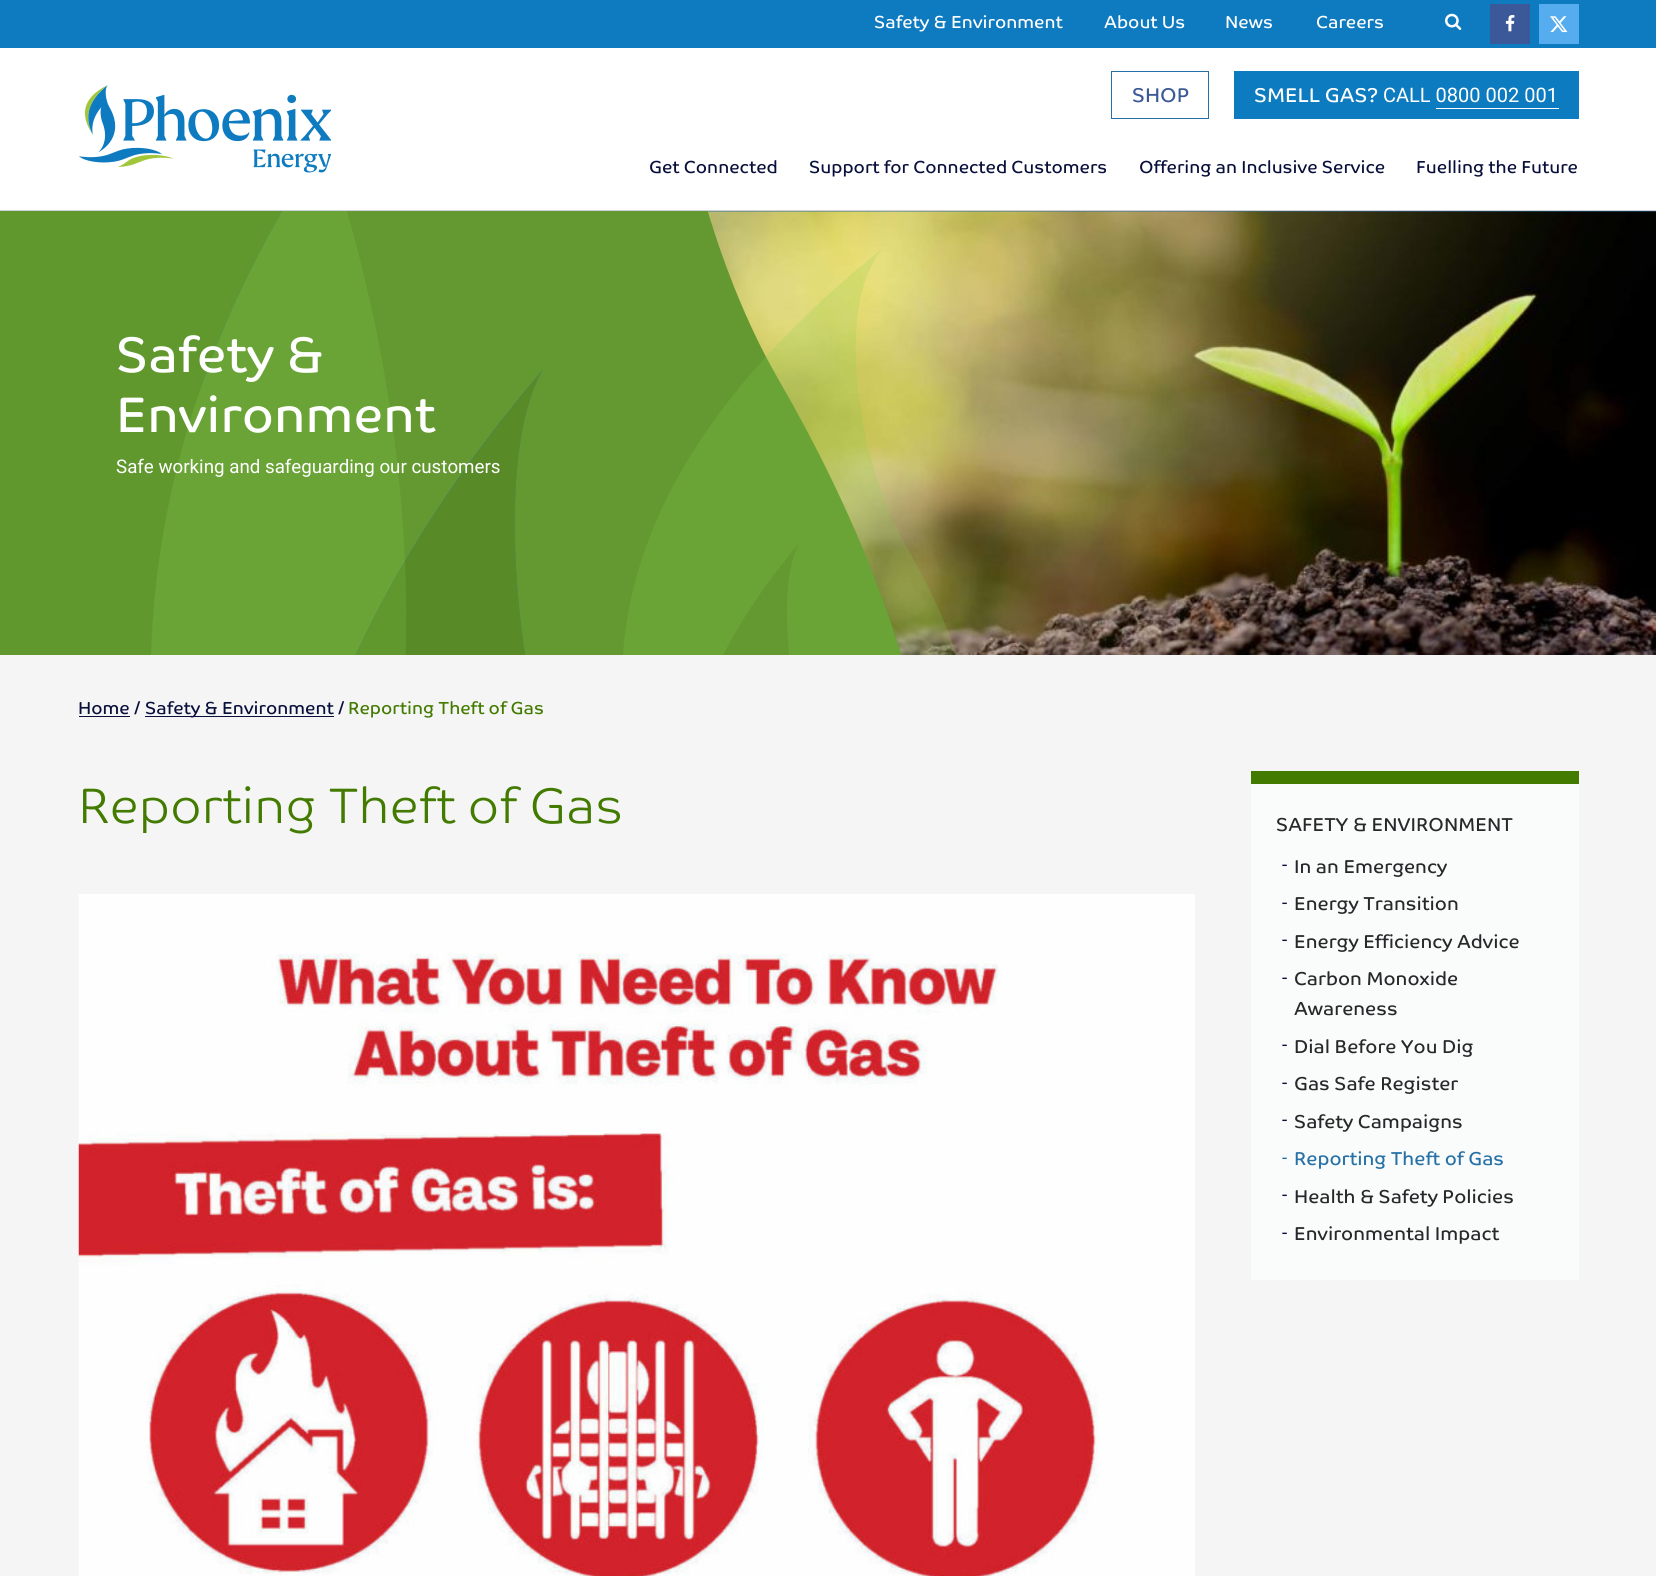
#include <cairo/cairo.h>
#include <math.h>
#include <stddef.h>

typedef struct { double x, y; const char *s; } line_t;
typedef struct { double x, y, w, h; unsigned color; } box_t;
static cairo_t *cr;

static void rgb(unsigned color)
{
	cairo_set_source_rgb(cr, (color >> 16) / 255.0, (color >> 8 & 255) / 255.0, (color & 255) / 255.0);
}

static void image(const char *path, double x, double y, double w, double h)
{
	cairo_surface_t *image = cairo_image_surface_create_from_png(path);
	cairo_save(cr);
	cairo_set_source_surface(cr, image, x, y);
	cairo_rectangle(cr, x, y, w, h);
	cairo_fill(cr);
	cairo_restore(cr);
	cairo_surface_destroy(image);
}

int main(void) {
	cairo_surface_t *surface = cairo_image_surface_create(CAIRO_FORMAT_RGB24, 1656, 1576);
	cr = cairo_create(surface);
	cairo_font_options_t *options = cairo_font_options_create();
	cairo_font_options_set_hint_metrics(options, CAIRO_HINT_METRICS_OFF);
	cairo_font_options_set_hint_style(options, CAIRO_HINT_STYLE_NONE);
	cairo_set_font_options(cr, options);
	cairo_set_miter_limit(cr, 4);
	rgb(0xf5f5f5);
	cairo_paint(cr);
	{
		static const box_t items[] = {
			{0, 210, 1656, 1, 0xcecfd8},
			{0, 48, 1656, 162, 0xffffff},
			{0, 0, 1656, 48, 0x0e7bc0},
		};
		for (size_t i = 0; i < sizeof items / sizeof *items; i++) {
			rgb(items[i].color);
			cairo_rectangle(cr, items[i].x, items[i].y, items[i].w, items[i].h);
			cairo_fill(cr);
		}
	}
	image("img/1.png", 1445, 13, 17, 17);
	rgb(0x3b5998);
	cairo_rectangle(cr, 1490, 4, 40, 40);
	cairo_fill(cr);
	image("img/2.png", 1505, 15, 10, 17);
	rgb(0x55acee);
	cairo_rectangle(cr, 1539, 4, 40, 40);
	cairo_fill(cr);
	image("img/3.png", 1550, 16, 18, 17);
	image("img/4.png", 79, 85, 252, 88);
	cairo_rectangle(cr, 1111.5, 71.5, 97, 47);
	rgb(0x2670a6);
	cairo_set_line_width(cr, 1);
	cairo_stroke(cr);
	{
		static const box_t items[] = {
			{1234, 71, 345, 48, 0x0c7bc0},
			{1436, 108, 123, 1, 0xffffff},
			{203, 211, 1453, 444, 0x2671a6},
		};
		for (size_t i = 0; i < sizeof items / sizeof *items; i++) {
			rgb(items[i].color);
			cairo_rectangle(cr, items[i].x, items[i].y, items[i].w, items[i].h);
			cairo_fill(cr);
		}
	}
	image("img/6.png", 707, 211, 949, 444);
	image("img/5.png", 0, 211, 957, 444);
	rgb(0x080f3a);
	cairo_rectangle(cr, 79, 716, 51, 1);
	cairo_fill(cr);
	cairo_rectangle(cr, 145, 716, 189, 1);
	cairo_fill(cr);
	image("img/7.png", 78, 894, 1117, 682);
	rgb(0xfafbfb);
	cairo_rectangle(cr, 1251, 784, 328, 496);
	cairo_fill(cr);
	rgb(0x437a00);
	cairo_rectangle(cr, 1251, 771, 328, 13);
	cairo_fill(cr);
	cairo_select_font_face(cr, "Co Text", CAIRO_FONT_SLANT_NORMAL, CAIRO_FONT_WEIGHT_NORMAL);
	cairo_set_font_size(cr, 17.5);
	rgb(0xffffff);
	{
		static const line_t items[] = {
			{874, 28, "Safety & Environment"},
			{1104, 28, "About Us"},
			{1225, 28, "News"},
			{1316, 28, "Careers"},
		};
		for (size_t i = 0; i < sizeof items / sizeof *items; i++) {
			cairo_move_to(cr, items[i].x, items[i].y);
			cairo_show_text(cr, items[i].s);
		}
	}
	cairo_set_font_size(cr, 20);
	rgb(0x3c5997);
	cairo_move_to(cr, 1132, 102);
	cairo_show_text(cr, "SHOP");
	rgb(0xffffff);
	cairo_move_to(cr, 1254, 102);
	cairo_show_text(cr, "SMELL GAS?");
	cairo_select_font_face(cr, "Roboto", CAIRO_FONT_SLANT_NORMAL, CAIRO_FONT_WEIGHT_NORMAL);
	cairo_move_to(cr, 1383, 102);
	cairo_show_text(cr, "CALL 0800 002 001");
	cairo_select_font_face(cr, "Co Text", CAIRO_FONT_SLANT_NORMAL, CAIRO_FONT_WEIGHT_NORMAL);
	cairo_set_font_size(cr, 17.5);
	rgb(0x080f3a);
	{
		static const line_t items[] = {
			{649, 173, "Get Connected"},
			{809, 173, "Support for Connected Customers"},
			{1139, 173, "Offering an Inclusive Service"},
			{1416, 173, "Fuelling the Future"},
		};
		for (size_t i = 0; i < sizeof items / sizeof *items; i++) {
			cairo_move_to(cr, items[i].x, items[i].y);
			cairo_show_text(cr, items[i].s);
		}
	}
	cairo_set_font_size(cr, 50);
	rgb(0xffffff);
	cairo_move_to(cr, 116, 372);
	cairo_show_text(cr, "Safety &");
	cairo_move_to(cr, 116, 432);
	cairo_show_text(cr, "Environment");
	cairo_select_font_face(cr, "Roboto", CAIRO_FONT_SLANT_NORMAL, CAIRO_FONT_WEIGHT_NORMAL);
	cairo_set_font_size(cr, 18.75);
	cairo_move_to(cr, 116, 473);
	cairo_show_text(cr, "Safe working and safeguarding our customers");
	cairo_select_font_face(cr, "Co Text", CAIRO_FONT_SLANT_NORMAL, CAIRO_FONT_WEIGHT_NORMAL);
	cairo_set_font_size(cr, 17.5);
	rgb(0x080f3a);
	cairo_move_to(cr, 78, 714);
	cairo_show_text(cr, "Home /");
	cairo_move_to(cr, 145, 714);
	cairo_show_text(cr, "Safety & Environment /");
	rgb(0x437a00);
	cairo_move_to(cr, 348, 714);
	cairo_show_text(cr, "Reporting Theft of Gas");
	cairo_select_font_face(cr, "Co Text Light", CAIRO_FONT_SLANT_NORMAL, CAIRO_FONT_WEIGHT_NORMAL);
	cairo_set_font_size(cr, 50);
	cairo_move_to(cr, 78, 823);
	cairo_show_text(cr, "Reporting Theft of Gas");
	cairo_select_font_face(cr, "Co Text", CAIRO_FONT_SLANT_NORMAL, CAIRO_FONT_WEIGHT_NORMAL);
	cairo_set_font_size(cr, 18.75);
	rgb(0x262829);
	cairo_move_to(cr, 1276, 831);
	cairo_show_text(cr, "SAFETY & ENVIRONMENT");
	cairo_select_font_face(cr, "Roboto", CAIRO_FONT_SLANT_NORMAL, CAIRO_FONT_WEIGHT_NORMAL);
	rgb(0x080f3a);
	cairo_move_to(cr, 1282, 871);
	cairo_show_text(cr, "-");
	cairo_select_font_face(cr, "Co Text", CAIRO_FONT_SLANT_NORMAL, CAIRO_FONT_WEIGHT_NORMAL);
	rgb(0x262829);
	cairo_move_to(cr, 1294, 873);
	cairo_show_text(cr, "In an Emergency");
	cairo_select_font_face(cr, "Roboto", CAIRO_FONT_SLANT_NORMAL, CAIRO_FONT_WEIGHT_NORMAL);
	rgb(0x080f3a);
	cairo_move_to(cr, 1282, 909);
	cairo_show_text(cr, "-");
	cairo_select_font_face(cr, "Co Text", CAIRO_FONT_SLANT_NORMAL, CAIRO_FONT_WEIGHT_NORMAL);
	rgb(0x262829);
	cairo_move_to(cr, 1294, 910);
	cairo_show_text(cr, "Energy Transition");
	cairo_select_font_face(cr, "Roboto", CAIRO_FONT_SLANT_NORMAL, CAIRO_FONT_WEIGHT_NORMAL);
	rgb(0x080f3a);
	cairo_move_to(cr, 1282, 946);
	cairo_show_text(cr, "-");
	cairo_select_font_face(cr, "Co Text", CAIRO_FONT_SLANT_NORMAL, CAIRO_FONT_WEIGHT_NORMAL);
	rgb(0x262829);
	cairo_move_to(cr, 1294, 948);
	cairo_show_text(cr, "Energy Efficiency Advice");
	cairo_select_font_face(cr, "Roboto", CAIRO_FONT_SLANT_NORMAL, CAIRO_FONT_WEIGHT_NORMAL);
	rgb(0x080f3a);
	cairo_move_to(cr, 1282, 984);
	cairo_show_text(cr, "-");
	cairo_select_font_face(cr, "Co Text", CAIRO_FONT_SLANT_NORMAL, CAIRO_FONT_WEIGHT_NORMAL);
	rgb(0x262829);
	cairo_move_to(cr, 1294, 985);
	cairo_show_text(cr, "Carbon Monoxide");
	cairo_move_to(cr, 1294, 1015);
	cairo_show_text(cr, "Awareness");
	cairo_select_font_face(cr, "Roboto", CAIRO_FONT_SLANT_NORMAL, CAIRO_FONT_WEIGHT_NORMAL);
	rgb(0x080f3a);
	cairo_move_to(cr, 1282, 1051);
	cairo_show_text(cr, "-");
	cairo_select_font_face(cr, "Co Text", CAIRO_FONT_SLANT_NORMAL, CAIRO_FONT_WEIGHT_NORMAL);
	rgb(0x262829);
	cairo_move_to(cr, 1294, 1053);
	cairo_show_text(cr, "Dial Before You Dig");
	cairo_select_font_face(cr, "Roboto", CAIRO_FONT_SLANT_NORMAL, CAIRO_FONT_WEIGHT_NORMAL);
	rgb(0x080f3a);
	cairo_move_to(cr, 1282, 1089);
	cairo_show_text(cr, "-");
	cairo_select_font_face(cr, "Co Text", CAIRO_FONT_SLANT_NORMAL, CAIRO_FONT_WEIGHT_NORMAL);
	rgb(0x262829);
	cairo_move_to(cr, 1294, 1090);
	cairo_show_text(cr, "Gas Safe Register");
	cairo_select_font_face(cr, "Roboto", CAIRO_FONT_SLANT_NORMAL, CAIRO_FONT_WEIGHT_NORMAL);
	rgb(0x080f3a);
	cairo_move_to(cr, 1282, 1126);
	cairo_show_text(cr, "-");
	cairo_select_font_face(cr, "Co Text", CAIRO_FONT_SLANT_NORMAL, CAIRO_FONT_WEIGHT_NORMAL);
	rgb(0x262829);
	cairo_move_to(cr, 1294, 1128);
	cairo_show_text(cr, "Safety Campaigns");
	cairo_select_font_face(cr, "Roboto", CAIRO_FONT_SLANT_NORMAL, CAIRO_FONT_WEIGHT_NORMAL);
	rgb(0x2671a6);
	cairo_move_to(cr, 1282, 1164);
	cairo_show_text(cr, "-");
	cairo_select_font_face(cr, "Co Text", CAIRO_FONT_SLANT_NORMAL, CAIRO_FONT_WEIGHT_NORMAL);
	cairo_move_to(cr, 1294, 1165);
	cairo_show_text(cr, "Reporting Theft of Gas");
	cairo_select_font_face(cr, "Roboto", CAIRO_FONT_SLANT_NORMAL, CAIRO_FONT_WEIGHT_NORMAL);
	rgb(0x080f3a);
	cairo_move_to(cr, 1282, 1201);
	cairo_show_text(cr, "-");
	cairo_select_font_face(cr, "Co Text", CAIRO_FONT_SLANT_NORMAL, CAIRO_FONT_WEIGHT_NORMAL);
	rgb(0x262829);
	cairo_move_to(cr, 1294, 1203);
	cairo_show_text(cr, "Health & Safety Policies");
	cairo_select_font_face(cr, "Roboto", CAIRO_FONT_SLANT_NORMAL, CAIRO_FONT_WEIGHT_NORMAL);
	rgb(0x080f3a);
	cairo_move_to(cr, 1282, 1239);
	cairo_show_text(cr, "-");
	cairo_select_font_face(cr, "Co Text", CAIRO_FONT_SLANT_NORMAL, CAIRO_FONT_WEIGHT_NORMAL);
	rgb(0x262829);
	cairo_move_to(cr, 1294, 1240);
	cairo_show_text(cr, "Environmental Impact");
	cairo_surface_write_to_png(surface, "page.png");
	cairo_font_options_destroy(options);
	cairo_destroy(cr);
	cairo_surface_destroy(surface);
	return 0;
}
